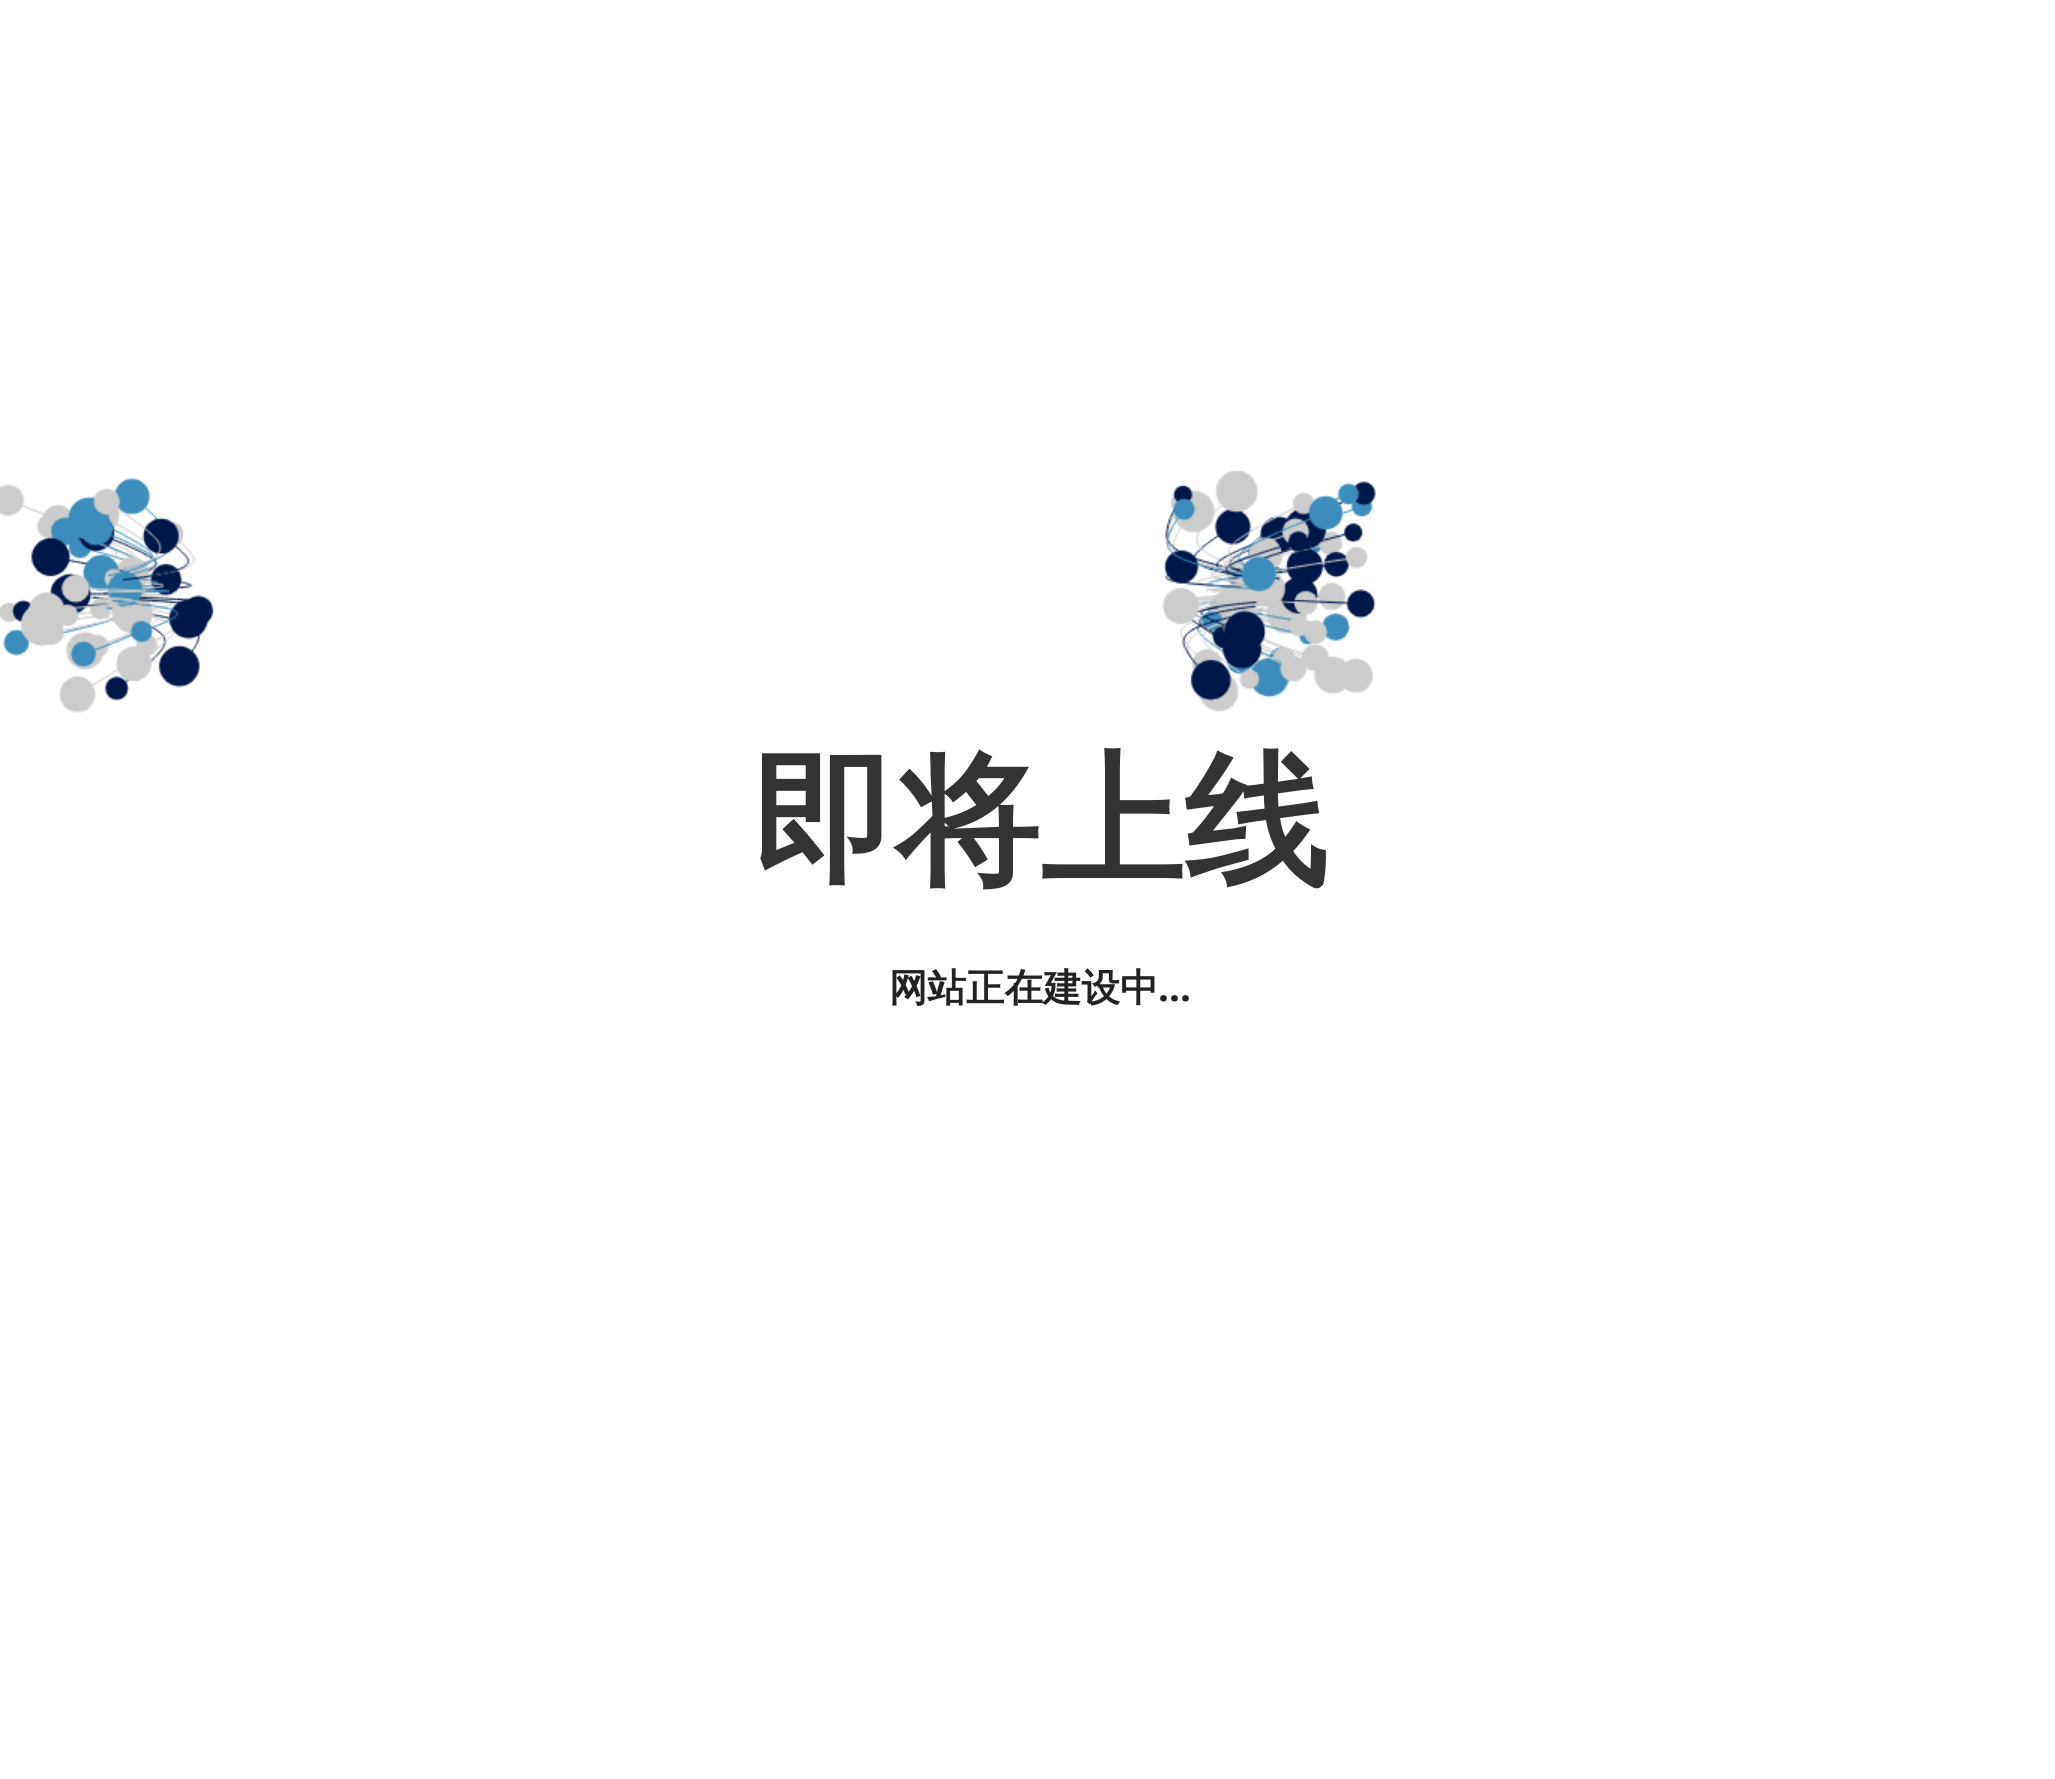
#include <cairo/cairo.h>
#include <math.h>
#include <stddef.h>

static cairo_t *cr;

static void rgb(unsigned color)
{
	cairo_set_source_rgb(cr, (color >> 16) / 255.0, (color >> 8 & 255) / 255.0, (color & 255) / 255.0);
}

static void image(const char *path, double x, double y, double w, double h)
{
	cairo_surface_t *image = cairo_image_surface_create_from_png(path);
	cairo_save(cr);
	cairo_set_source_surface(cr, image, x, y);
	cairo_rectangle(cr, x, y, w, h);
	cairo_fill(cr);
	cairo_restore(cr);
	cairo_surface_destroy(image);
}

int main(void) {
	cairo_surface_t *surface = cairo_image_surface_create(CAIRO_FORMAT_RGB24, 2055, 1779);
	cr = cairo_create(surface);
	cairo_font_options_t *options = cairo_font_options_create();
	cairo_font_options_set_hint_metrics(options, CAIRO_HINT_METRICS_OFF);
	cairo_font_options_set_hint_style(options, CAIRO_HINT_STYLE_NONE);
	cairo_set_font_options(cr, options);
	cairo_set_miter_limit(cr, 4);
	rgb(0xffffff);
	cairo_paint(cr);
	image("img/1.png", 0, 469, 1376, 244);
	cairo_select_font_face(cr, "WenQuanYi Zen Hei", CAIRO_FONT_SLANT_NORMAL, CAIRO_FONT_WEIGHT_BOLD);
	cairo_set_font_size(cr, 144);
	rgb(0x333333);
	cairo_move_to(cr, 752, 871);
	cairo_show_text(cr, "即将上线");
	cairo_set_font_size(cr, 38.5);
	rgb(0x222222);
	cairo_move_to(cr, 889, 1001);
	cairo_show_text(cr, "网站正在建设中");
	cairo_select_font_face(cr, "Open Sans", CAIRO_FONT_SLANT_NORMAL, CAIRO_FONT_WEIGHT_BOLD);
	cairo_move_to(cr, 1158, 1001);
	cairo_show_text(cr, "...");
	cairo_surface_write_to_png(surface, "page.png");
	cairo_font_options_destroy(options);
	cairo_destroy(cr);
	cairo_surface_destroy(surface);
	return 0;
}
